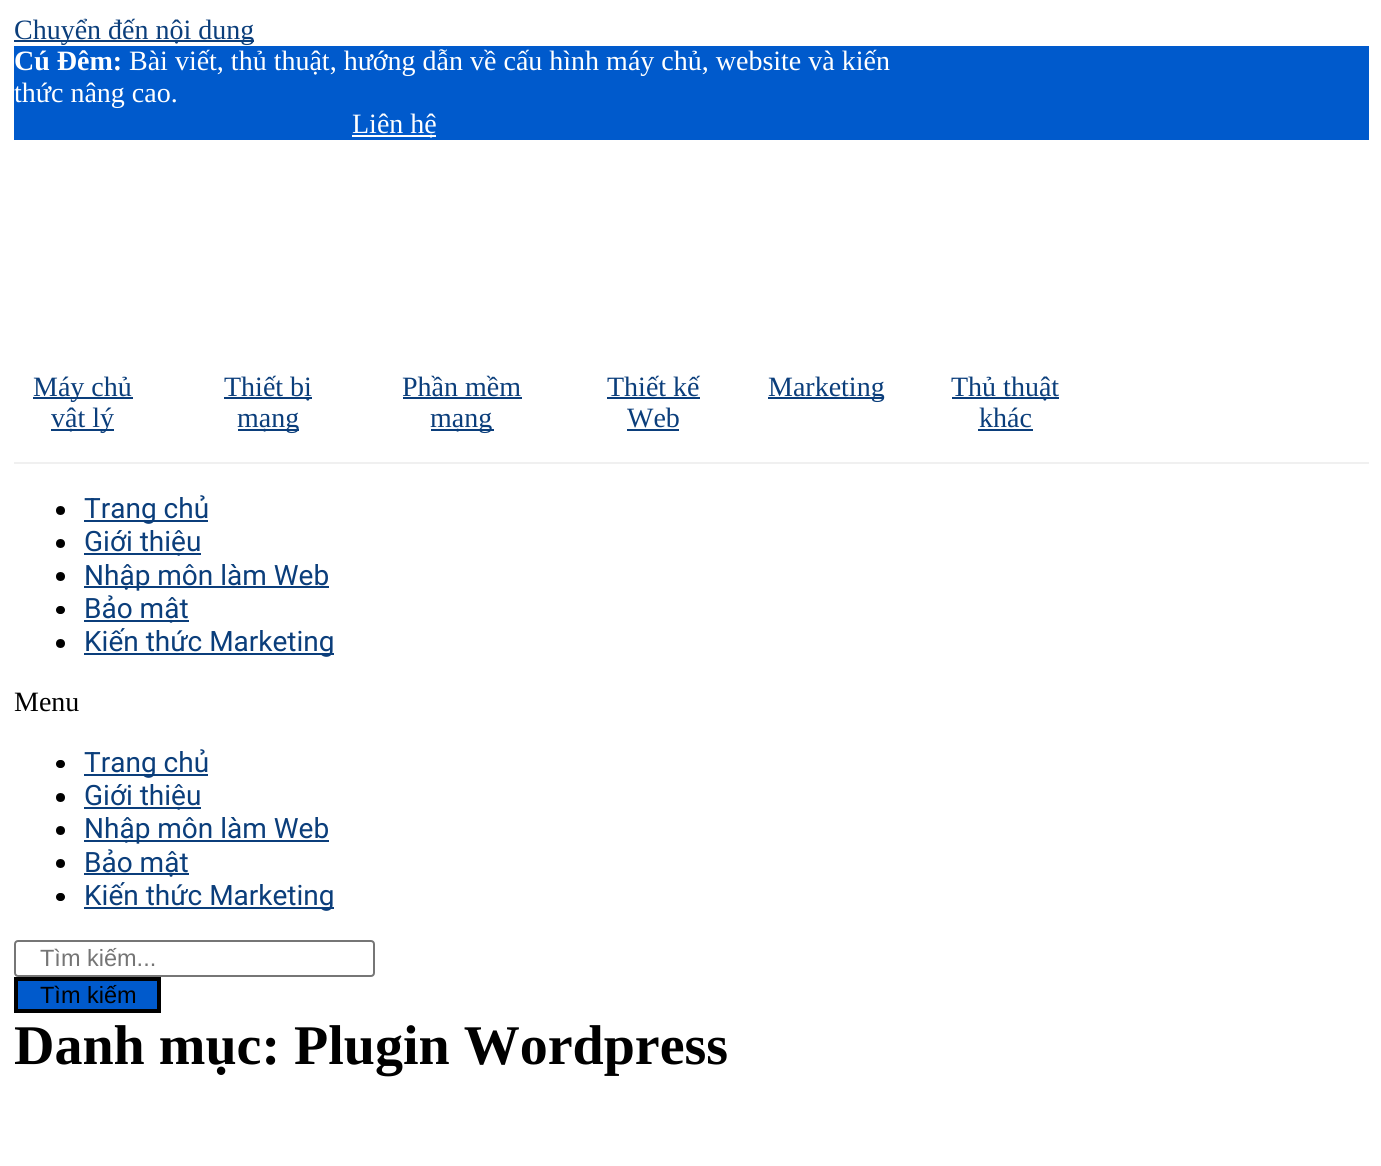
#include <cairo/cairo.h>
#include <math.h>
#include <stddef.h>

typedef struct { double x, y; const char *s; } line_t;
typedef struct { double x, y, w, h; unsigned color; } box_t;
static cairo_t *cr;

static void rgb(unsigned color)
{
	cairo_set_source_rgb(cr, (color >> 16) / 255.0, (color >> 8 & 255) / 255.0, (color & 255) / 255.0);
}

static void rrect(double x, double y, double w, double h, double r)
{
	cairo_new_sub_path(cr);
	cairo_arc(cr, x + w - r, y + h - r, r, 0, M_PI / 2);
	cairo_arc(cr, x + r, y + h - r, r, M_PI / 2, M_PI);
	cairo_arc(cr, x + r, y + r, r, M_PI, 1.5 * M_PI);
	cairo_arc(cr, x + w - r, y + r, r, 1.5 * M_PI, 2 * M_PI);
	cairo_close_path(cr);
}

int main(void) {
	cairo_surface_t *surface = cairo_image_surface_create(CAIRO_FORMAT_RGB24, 1381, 1166);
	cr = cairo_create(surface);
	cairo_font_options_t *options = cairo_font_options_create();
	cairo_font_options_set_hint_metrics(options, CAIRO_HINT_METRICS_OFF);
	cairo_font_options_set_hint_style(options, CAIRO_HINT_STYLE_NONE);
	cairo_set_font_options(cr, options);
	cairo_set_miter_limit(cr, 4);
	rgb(0xffffff);
	cairo_paint(cr);
	{
		static const box_t items[] = {
			{14, 40, 240, 2, 0x0b3e7b},
			{14, 46, 1355, 94, 0x005acc},
			{352, 135, 84, 2, 0xffffff},
			{14, 462, 1355, 2, 0xf0f0f0},
			{33, 397, 100, 2, 0x0b3e7b},
			{51, 429, 63, 2, 0x0b3e7b},
			{224, 397, 88, 2, 0x0b3e7b},
			{238, 429, 61, 2, 0x0b3e7b},
			{403, 397, 119, 2, 0x0b3e7b},
			{431, 429, 63, 2, 0x0b3e7b},
			{607, 397, 93, 2, 0x0b3e7b},
			{627, 429, 52, 2, 0x0b3e7b},
			{768, 397, 116, 2, 0x0b3e7b},
			{952, 397, 107, 2, 0x0b3e7b},
			{978, 429, 55, 2, 0x0b3e7b},
		};
		for (size_t i = 0; i < sizeof items / sizeof *items; i++) {
			rgb(items[i].color);
			cairo_rectangle(cr, items[i].x, items[i].y, items[i].w, items[i].h);
			cairo_fill(cr);
		}
	}
	rgb(0x000000);
	cairo_arc(cr, 60.5, 510.5, 4.5, 0, 2 * M_PI);
	cairo_fill(cr);
	rgb(0x0b3e7b);
	cairo_rectangle(cr, 84, 520, 124, 2);
	cairo_fill(cr);
	rgb(0x000000);
	cairo_arc(cr, 60.5, 543.5, 4.5, 0, 2 * M_PI);
	cairo_fill(cr);
	rgb(0x0b3e7b);
	cairo_rectangle(cr, 84, 553, 117, 2);
	cairo_fill(cr);
	rgb(0x000000);
	cairo_arc(cr, 60.5, 576.5, 4.5, 0, 2 * M_PI);
	cairo_fill(cr);
	rgb(0x0b3e7b);
	cairo_rectangle(cr, 84, 586, 245, 2);
	cairo_fill(cr);
	rgb(0x000000);
	rrect(56, 606, 9, 8, 4);
	cairo_fill(cr);
	rgb(0x0b3e7b);
	cairo_rectangle(cr, 84, 620, 105, 2);
	cairo_fill(cr);
	rgb(0x000000);
	cairo_arc(cr, 60.5, 643.5, 4.5, 0, 2 * M_PI);
	cairo_fill(cr);
	rgb(0x0b3e7b);
	cairo_rectangle(cr, 84, 653, 250, 2);
	cairo_fill(cr);
	rgb(0x000000);
	rrect(56, 760, 9, 8, 4);
	cairo_fill(cr);
	rgb(0x0b3e7b);
	cairo_rectangle(cr, 84, 774, 124, 2);
	cairo_fill(cr);
	rgb(0x000000);
	cairo_arc(cr, 60.5, 797.5, 4.5, 0, 2 * M_PI);
	cairo_fill(cr);
	rgb(0x0b3e7b);
	cairo_rectangle(cr, 84, 807, 117, 2);
	cairo_fill(cr);
	rgb(0x000000);
	cairo_arc(cr, 60.5, 830.5, 4.5, 0, 2 * M_PI);
	cairo_fill(cr);
	rgb(0x0b3e7b);
	cairo_rectangle(cr, 84, 840, 245, 2);
	cairo_fill(cr);
	rgb(0x000000);
	cairo_arc(cr, 60.5, 863.5, 4.5, 0, 2 * M_PI);
	cairo_fill(cr);
	rgb(0x0b3e7b);
	cairo_rectangle(cr, 84, 873, 105, 2);
	cairo_fill(cr);
	rgb(0x000000);
	rrect(56, 893, 9, 8, 4);
	cairo_fill(cr);
	rgb(0x0b3e7b);
	cairo_rectangle(cr, 84, 907, 250, 2);
	cairo_fill(cr);
	rrect(15, 941, 359, 35, 3);
	rgb(0x767676);
	cairo_stroke(cr);
	rgb(0x005acc);
	cairo_rectangle(cr, 16, 979, 143, 32);
	cairo_fill_preserve(cr);
	rgb(0x000000);
	cairo_set_line_width(cr, 4);
	cairo_stroke(cr);
	cairo_select_font_face(cr, "Liberation Serif", CAIRO_FONT_SLANT_NORMAL, CAIRO_FONT_WEIGHT_NORMAL);
	cairo_set_font_size(cr, 28);
	rgb(0x0b3e7b);
	cairo_move_to(cr, 14, 39);
	cairo_show_text(cr, "Chuyển đến nội dung");
	cairo_select_font_face(cr, "Liberation Serif", CAIRO_FONT_SLANT_NORMAL, CAIRO_FONT_WEIGHT_BOLD);
	rgb(0xffffff);
	cairo_move_to(cr, 14, 70);
	cairo_show_text(cr, "Cú Đêm:");
	cairo_select_font_face(cr, "Liberation Serif", CAIRO_FONT_SLANT_NORMAL, CAIRO_FONT_WEIGHT_NORMAL);
	{
		static const line_t items[] = {
			{129, 70, "Bài viết, thủ thuật, hướng dẫn về cấu hình máy chủ, website và kiến"},
			{14, 102, "thức nâng cao."},
			{352, 133, "Liên hệ"},
		};
		for (size_t i = 0; i < sizeof items / sizeof *items; i++) {
			cairo_move_to(cr, items[i].x, items[i].y);
			cairo_show_text(cr, items[i].s);
		}
	}
	rgb(0x0b3e7b);
	{
		static const line_t items[] = {
			{33, 396, "Máy chủ"},
			{51, 427, "vật lý"},
			{224, 396, "Thiết bị"},
			{237, 427, "mạng"},
			{402, 396, "Phần mềm"},
			{430, 427, "mạng"},
			{607, 396, "Thiết kế"},
			{627, 427, "Web"},
			{768, 396, "Marketing"},
			{951, 396, "Thủ thuật"},
			{979, 427, "khác"},
		};
		for (size_t i = 0; i < sizeof items / sizeof *items; i++) {
			cairo_move_to(cr, items[i].x, items[i].y);
			cairo_show_text(cr, items[i].s);
		}
	}
	cairo_select_font_face(cr, "Roboto", CAIRO_FONT_SLANT_NORMAL, CAIRO_FONT_WEIGHT_NORMAL);
	{
		static const line_t items[] = {
			{84, 518, "Trang chủ"},
			{84, 551, "Giới thiệu"},
			{84, 585, "Nhập môn làm Web"},
			{84, 618, "Bảo mật"},
			{84, 651, "Kiến thức Marketing"},
		};
		for (size_t i = 0; i < sizeof items / sizeof *items; i++) {
			cairo_move_to(cr, items[i].x, items[i].y);
			cairo_show_text(cr, items[i].s);
		}
	}
	cairo_select_font_face(cr, "Liberation Serif", CAIRO_FONT_SLANT_NORMAL, CAIRO_FONT_WEIGHT_NORMAL);
	rgb(0x000000);
	cairo_move_to(cr, 14, 711);
	cairo_show_text(cr, "Menu");
	cairo_select_font_face(cr, "Roboto", CAIRO_FONT_SLANT_NORMAL, CAIRO_FONT_WEIGHT_NORMAL);
	rgb(0x0b3e7b);
	{
		static const line_t items[] = {
			{84, 772, "Trang chủ"},
			{84, 805, "Giới thiệu"},
			{84, 838, "Nhập môn làm Web"},
			{84, 872, "Bảo mật"},
			{84, 905, "Kiến thức Marketing"},
		};
		for (size_t i = 0; i < sizeof items / sizeof *items; i++) {
			cairo_move_to(cr, items[i].x, items[i].y);
			cairo_show_text(cr, items[i].s);
		}
	}
	cairo_select_font_face(cr, "Liberation Sans", CAIRO_FONT_SLANT_NORMAL, CAIRO_FONT_WEIGHT_NORMAL);
	cairo_set_font_size(cr, 23.5);
	rgb(0x757575);
	cairo_move_to(cr, 40, 966);
	cairo_show_text(cr, "Tìm kiếm...");
	rgb(0x000000);
	cairo_move_to(cr, 40, 1003);
	cairo_show_text(cr, "Tìm kiếm");
	cairo_select_font_face(cr, "Liberation Serif", CAIRO_FONT_SLANT_NORMAL, CAIRO_FONT_WEIGHT_BOLD);
	cairo_set_font_size(cr, 56);
	cairo_move_to(cr, 14, 1064);
	cairo_show_text(cr, "Danh mục: Plugin Wordpress");
	cairo_surface_write_to_png(surface, "page.png");
	cairo_font_options_destroy(options);
	cairo_destroy(cr);
	cairo_surface_destroy(surface);
	return 0;
}
